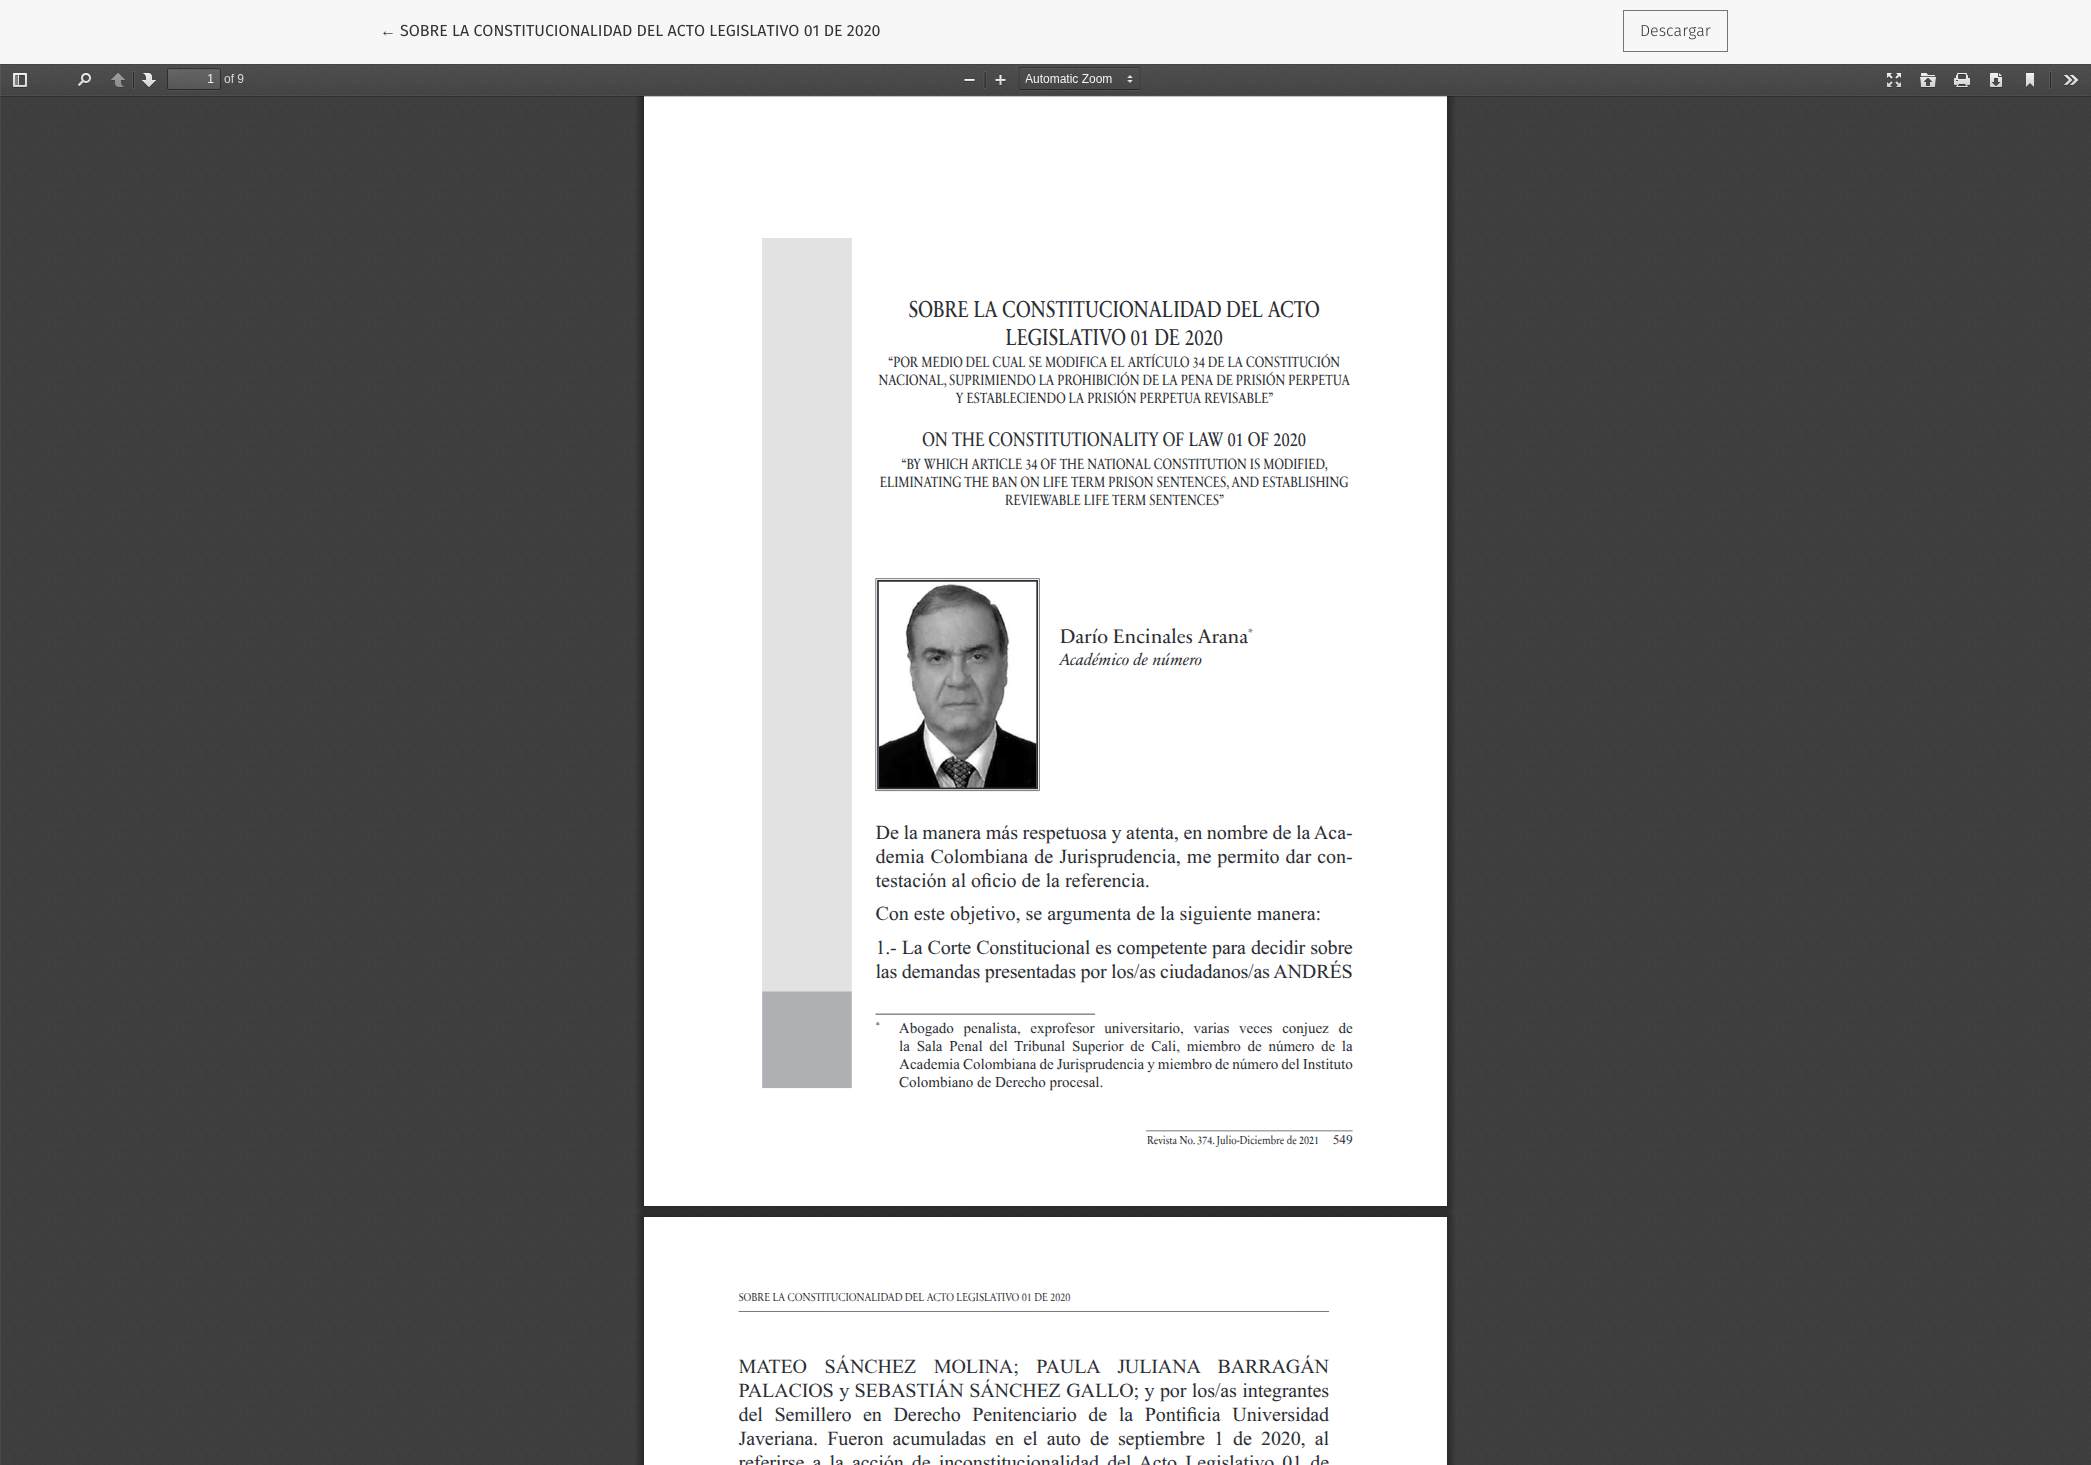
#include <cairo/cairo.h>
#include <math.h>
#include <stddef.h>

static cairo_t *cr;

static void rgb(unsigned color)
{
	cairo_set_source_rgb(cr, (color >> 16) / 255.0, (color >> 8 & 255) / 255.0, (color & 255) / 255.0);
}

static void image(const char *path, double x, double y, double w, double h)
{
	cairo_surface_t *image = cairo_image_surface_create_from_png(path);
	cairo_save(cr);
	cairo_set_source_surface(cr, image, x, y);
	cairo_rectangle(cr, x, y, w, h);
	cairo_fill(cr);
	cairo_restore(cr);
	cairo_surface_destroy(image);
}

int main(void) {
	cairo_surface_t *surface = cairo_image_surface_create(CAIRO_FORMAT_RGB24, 2091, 1465);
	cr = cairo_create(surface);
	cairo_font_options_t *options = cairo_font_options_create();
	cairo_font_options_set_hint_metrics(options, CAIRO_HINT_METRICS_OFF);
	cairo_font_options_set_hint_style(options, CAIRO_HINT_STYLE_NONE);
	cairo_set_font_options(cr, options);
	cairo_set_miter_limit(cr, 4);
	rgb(0xf7f7f7);
	cairo_paint(cr);
	cairo_rectangle(cr, 1623.5, 10.5, 104, 41);
	rgb(0x757575);
	cairo_set_line_width(cr, 1);
	cairo_stroke(cr);
	image("img/1.png", 0, 64, 2091, 1401);
	cairo_select_font_face(cr, "Liberation Sans", CAIRO_FONT_SLANT_NORMAL, CAIRO_FONT_WEIGHT_NORMAL);
	cairo_set_font_size(cr, 16);
	rgb(0x333333);
	cairo_move_to(cr, 380, 36);
	cairo_show_text(cr, "←");
	cairo_select_font_face(cr, "Fira Sans", CAIRO_FONT_SLANT_NORMAL, CAIRO_FONT_WEIGHT_NORMAL);
	cairo_move_to(cr, 400, 36);
	cairo_show_text(cr, "SOBRE LA CONSTITUCIONALIDAD DEL ACTO LEGISLATIVO 01 DE 2020");
	cairo_select_font_face(cr, "Fira Sans Light", CAIRO_FONT_SLANT_NORMAL, CAIRO_FONT_WEIGHT_NORMAL);
	cairo_move_to(cr, 1640, 36);
	cairo_show_text(cr, "Descargar");
	cairo_surface_write_to_png(surface, "page.png");
	cairo_font_options_destroy(options);
	cairo_destroy(cr);
	cairo_surface_destroy(surface);
	return 0;
}
